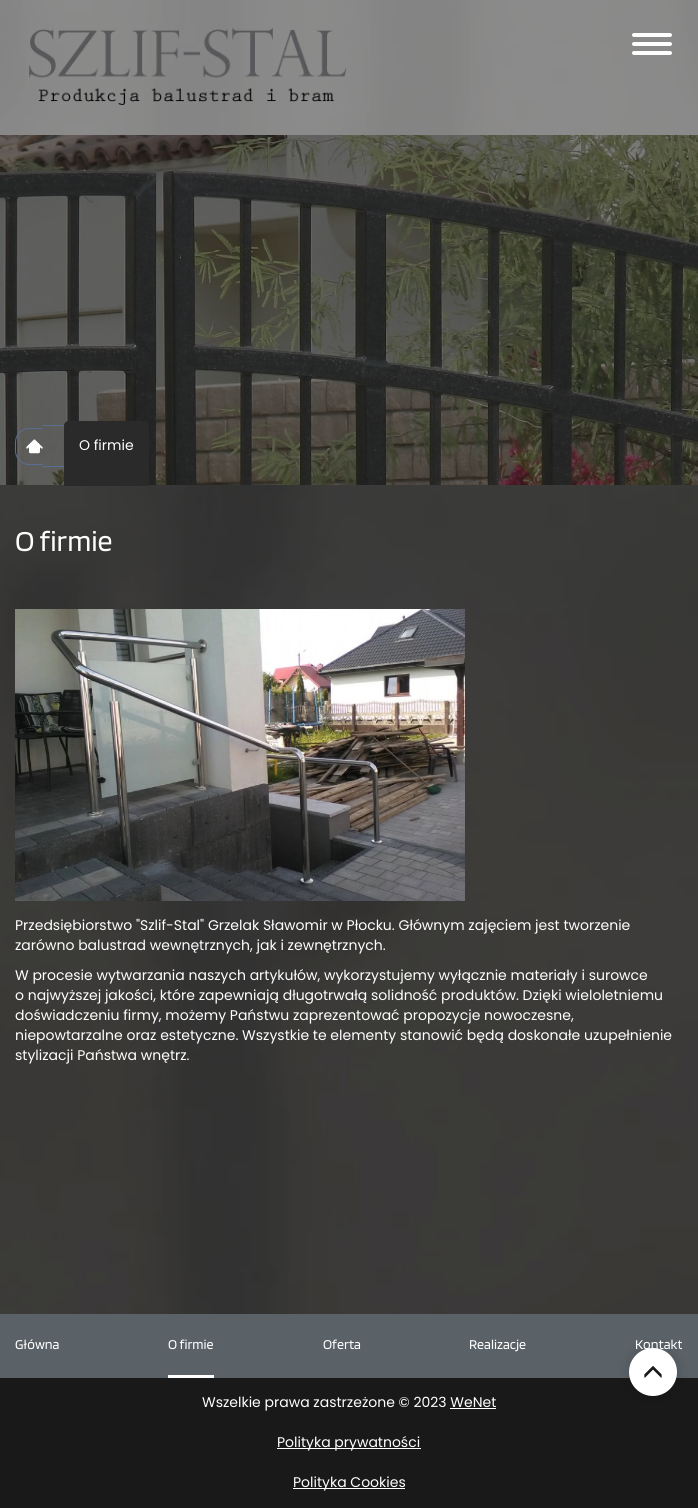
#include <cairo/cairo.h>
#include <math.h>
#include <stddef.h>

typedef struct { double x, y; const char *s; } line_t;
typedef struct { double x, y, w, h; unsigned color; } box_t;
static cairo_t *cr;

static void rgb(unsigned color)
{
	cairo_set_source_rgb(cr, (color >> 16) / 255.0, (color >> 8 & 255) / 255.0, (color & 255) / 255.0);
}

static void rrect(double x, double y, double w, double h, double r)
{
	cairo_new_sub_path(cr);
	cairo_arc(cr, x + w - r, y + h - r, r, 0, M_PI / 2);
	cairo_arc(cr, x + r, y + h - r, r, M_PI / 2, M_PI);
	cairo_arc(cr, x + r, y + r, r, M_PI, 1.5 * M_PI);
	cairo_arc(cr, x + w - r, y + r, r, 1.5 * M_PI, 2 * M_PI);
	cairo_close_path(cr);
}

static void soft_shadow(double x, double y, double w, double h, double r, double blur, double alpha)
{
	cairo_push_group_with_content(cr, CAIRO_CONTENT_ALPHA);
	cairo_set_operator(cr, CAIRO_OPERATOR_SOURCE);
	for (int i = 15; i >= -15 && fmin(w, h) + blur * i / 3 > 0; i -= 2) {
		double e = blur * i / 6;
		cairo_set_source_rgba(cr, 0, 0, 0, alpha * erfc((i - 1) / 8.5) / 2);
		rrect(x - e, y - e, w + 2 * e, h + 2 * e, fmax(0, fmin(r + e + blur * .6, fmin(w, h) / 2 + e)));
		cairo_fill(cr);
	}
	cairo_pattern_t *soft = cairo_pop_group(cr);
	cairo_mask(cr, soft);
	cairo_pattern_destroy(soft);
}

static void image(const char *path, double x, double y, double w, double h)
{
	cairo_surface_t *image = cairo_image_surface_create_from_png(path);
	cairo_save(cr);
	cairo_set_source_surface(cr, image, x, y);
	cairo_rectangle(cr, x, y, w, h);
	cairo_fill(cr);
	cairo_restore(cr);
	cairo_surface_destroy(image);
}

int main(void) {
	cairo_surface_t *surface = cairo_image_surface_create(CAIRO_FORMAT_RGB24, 698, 1508);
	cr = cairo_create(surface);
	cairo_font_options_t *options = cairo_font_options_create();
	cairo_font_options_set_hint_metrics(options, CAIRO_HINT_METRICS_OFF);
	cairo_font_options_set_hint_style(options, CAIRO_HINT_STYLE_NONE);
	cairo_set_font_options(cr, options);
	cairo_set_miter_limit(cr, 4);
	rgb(0x2a2a2a);
	cairo_paint(cr);
	image("img/1.png", 0, 0, 698, 1314);
	cairo_set_source_rgba(cr, 1, 1, 1, 0.4);
	cairo_rectangle(cr, 0, 0, 698, 135);
	cairo_fill(cr);
	image("img/2.png", 29, 28, 318, 77);
	rgb(0xffffff);
	rrect(632, 33, 40, 4, 2);
	cairo_fill(cr);
	rrect(632, 42, 40, 4, 2);
	cairo_fill(cr);
	rrect(632, 51, 40, 4, 2);
	cairo_fill(cr);
	image("img/3.png", 0, 135, 698, 350);
	rgb(0x586e93);
	cairo_set_fill_rule(cr, CAIRO_FILL_RULE_EVEN_ODD);
	cairo_new_path(cr);
	cairo_move_to(cr, 29, 428);
	cairo_line_to(cr, 43, 428);
	cairo_line_to(cr, 43, 465);
	cairo_line_to(cr, 29, 465);
	cairo_curve_to(cr, 21.5, 465, 15, 458.5, 15, 451);
	cairo_line_to(cr, 15, 442);
	cairo_curve_to(cr, 15, 434.5, 21.5, 428, 29, 428);
	cairo_close_path(cr);
	cairo_move_to(cr, 29, 429);
	cairo_line_to(cr, 43, 429);
	cairo_line_to(cr, 43, 464);
	cairo_line_to(cr, 29, 464);
	cairo_curve_to(cr, 22, 464, 16, 458, 16, 451);
	cairo_line_to(cr, 16, 442);
	cairo_curve_to(cr, 16, 435, 22, 429, 29, 429);
	cairo_close_path(cr);
	cairo_fill(cr);
	cairo_new_path(cr);
	cairo_move_to(cr, 43, 425);
	cairo_line_to(cr, 66, 425);
	cairo_curve_to(cr, 78, 425, 87, 434, 87, 446);
	cairo_curve_to(cr, 87, 458, 78, 467, 66, 467);
	cairo_line_to(cr, 43, 467);
	cairo_close_path(cr);
	cairo_move_to(cr, 43, 426);
	cairo_line_to(cr, 66, 426);
	cairo_curve_to(cr, 77, 426, 86, 435, 86, 446);
	cairo_curve_to(cr, 86, 457, 77, 466, 66, 466);
	cairo_line_to(cr, 43, 466);
	cairo_close_path(cr);
	cairo_fill(cr);
	image("img/4.png", 26, 439, 17, 15);
	rgb(0x2a2a2a);
	cairo_new_path(cr);
	cairo_move_to(cr, 69, 421);
	cairo_line_to(cr, 144, 421);
	cairo_curve_to(cr, 147, 421, 149, 423, 149, 426);
	cairo_line_to(cr, 149, 486);
	cairo_line_to(cr, 64, 486);
	cairo_line_to(cr, 64, 426);
	cairo_curve_to(cr, 64, 423, 66, 421, 69, 421);
	cairo_close_path(cr);
	cairo_fill(cr);
	image("img/5.png", 15, 609, 450, 292);
	rgb(0x5a6268);
	cairo_rectangle(cr, 0, 1314, 698, 64);
	cairo_fill(cr);
	rgb(0x1a1919);
	cairo_rectangle(cr, 0, 1378, 698, 130);
	cairo_fill(cr);
	rgb(0x000000);
	soft_shadow(628, 1348, 50, 49, 24.5, 6.5, 0.15);
	rgb(0xffffff);
	cairo_arc(cr, 653, 1372, 24, 0, 2 * M_PI);
	cairo_fill(cr);
	image("img/6.png", 644, 1366, 18, 12);
	{
		static const box_t items[] = {
			{168, 1375, 46, 3, 0xffffff},
			{450, 1408, 46, 1, 0xffffff},
			{277, 1448, 144, 1, 0xffffff},
			{293, 1488, 112, 1, 0xffffff},
		};
		for (size_t i = 0; i < sizeof items / sizeof *items; i++) {
			rgb(items[i].color);
			cairo_rectangle(cr, items[i].x, items[i].y, items[i].w, items[i].h);
			cairo_fill(cr);
		}
	}
	cairo_select_font_face(cr, "Poppins", CAIRO_FONT_SLANT_NORMAL, CAIRO_FONT_WEIGHT_NORMAL);
	cairo_set_font_size(cr, 14);
	cairo_move_to(cr, 79, 450);
	cairo_show_text(cr, "O firmie");
	cairo_select_font_face(cr, "Blinker", CAIRO_FONT_SLANT_NORMAL, CAIRO_FONT_WEIGHT_NORMAL);
	cairo_set_font_size(cr, 30);
	cairo_move_to(cr, 15, 551);
	cairo_show_text(cr, "O firmie");
	cairo_select_font_face(cr, "Poppins", CAIRO_FONT_SLANT_NORMAL, CAIRO_FONT_WEIGHT_NORMAL);
	cairo_set_font_size(cr, 14);
	{
		static const line_t items[] = {
			{15, 930, "Przedsiębiorstwo \"Szlif-Stal\" Grzelak Sławomir w Płocku. Głównym zajęciem jest tworzenie"},
			{15, 950, "zarówno balustrad wewnętrznych, jak i zewnętrznych."},
			{15, 980, "W procesie wytwarzania naszych artykułów, wykorzystujemy wyłącznie materiały i surowce"},
			{15, 1000, "o najwyższej jakości, które zapewniają długotrwałą solidność produktów. Dzięki wieloletniemu"},
			{15, 1020, "doświadczeniu firmy, możemy Państwu zaprezentować propozycje nowoczesne,"},
			{15, 1040, "niepowtarzalne oraz estetyczne. Wszystkie te elementy stanowić będą doskonałe uzupełnienie"},
			{15, 1060, "stylizacji Państwa wnętrz."},
		};
		for (size_t i = 0; i < sizeof items / sizeof *items; i++) {
			cairo_move_to(cr, items[i].x, items[i].y);
			cairo_show_text(cr, items[i].s);
		}
	}
	cairo_select_font_face(cr, "Blinker", CAIRO_FONT_SLANT_NORMAL, CAIRO_FONT_WEIGHT_NORMAL);
	{
		static const line_t items[] = {
			{15, 1349, "Główna"},
			{168, 1349, "O firmie"},
			{323, 1349, "Oferta"},
			{469, 1349, "Realizacje"},
			{635, 1349, "Kontakt"},
		};
		for (size_t i = 0; i < sizeof items / sizeof *items; i++) {
			cairo_move_to(cr, items[i].x, items[i].y);
			cairo_show_text(cr, items[i].s);
		}
	}
	cairo_select_font_face(cr, "Poppins", CAIRO_FONT_SLANT_NORMAL, CAIRO_FONT_WEIGHT_NORMAL);
	{
		static const line_t items[] = {
			{202, 1407, "Wszelkie prawa zastrzeżone © 2023 WeNet"},
			{277, 1447, "Polityka prywatności"},
			{293, 1487, "Polityka Cookies"},
		};
		for (size_t i = 0; i < sizeof items / sizeof *items; i++) {
			cairo_move_to(cr, items[i].x, items[i].y);
			cairo_show_text(cr, items[i].s);
		}
	}
	cairo_surface_write_to_png(surface, "page.png");
	cairo_font_options_destroy(options);
	cairo_destroy(cr);
	cairo_surface_destroy(surface);
	return 0;
}
